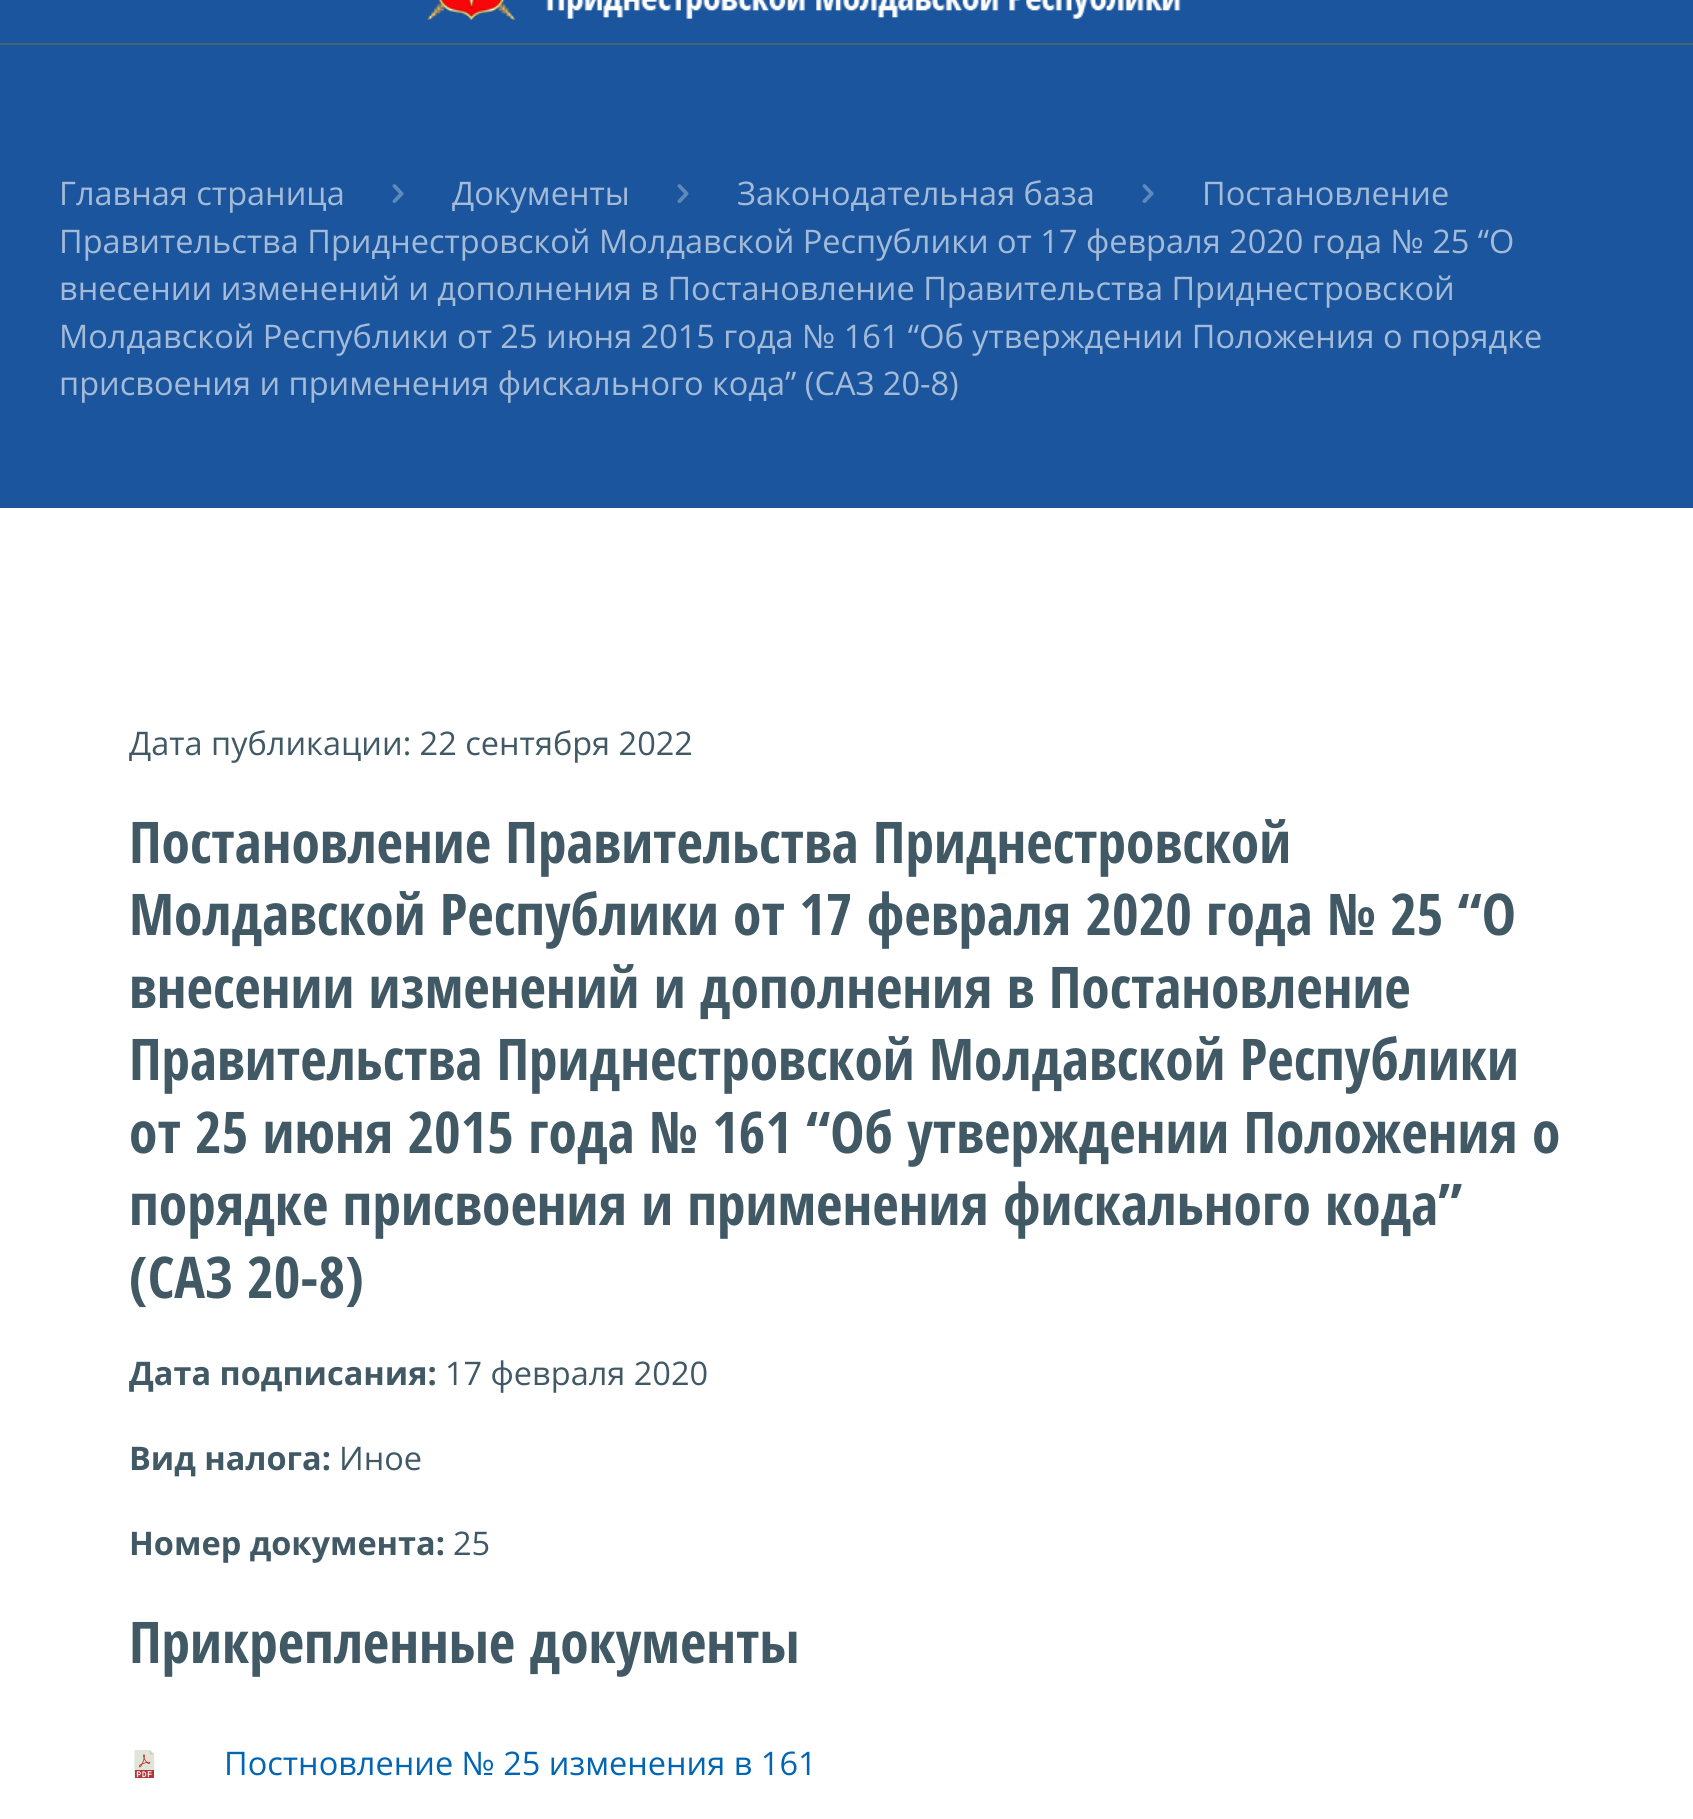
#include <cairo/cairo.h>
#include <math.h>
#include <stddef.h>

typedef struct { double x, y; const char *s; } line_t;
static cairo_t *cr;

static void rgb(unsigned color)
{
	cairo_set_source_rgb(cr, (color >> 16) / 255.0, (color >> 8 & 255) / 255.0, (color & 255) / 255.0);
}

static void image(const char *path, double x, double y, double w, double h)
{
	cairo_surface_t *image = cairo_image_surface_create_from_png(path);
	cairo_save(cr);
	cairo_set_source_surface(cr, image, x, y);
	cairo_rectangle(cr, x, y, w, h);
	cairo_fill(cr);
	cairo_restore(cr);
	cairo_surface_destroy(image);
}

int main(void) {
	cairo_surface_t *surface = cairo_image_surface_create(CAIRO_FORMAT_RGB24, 1693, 1819);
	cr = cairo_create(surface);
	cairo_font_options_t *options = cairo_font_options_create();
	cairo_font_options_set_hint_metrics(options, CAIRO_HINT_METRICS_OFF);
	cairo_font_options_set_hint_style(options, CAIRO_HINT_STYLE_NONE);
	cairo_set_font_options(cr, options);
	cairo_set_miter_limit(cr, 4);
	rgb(0xffffff);
	cairo_paint(cr);
	rgb(0x1b559e);
	cairo_rectangle(cr, 0, 0, 1693, 43);
	cairo_fill(cr);
	rgb(0x47646f);
	cairo_rectangle(cr, 0, 43, 1693, 2);
	cairo_fill(cr);
	image("img/1.png", 426, 0, 755, 20);
	rgb(0x1b559e);
	cairo_rectangle(cr, 0, 45, 1693, 463);
	cairo_fill(cr);
	image("img/2.png", 1142, 184, 12, 19);
	image("img/2.png", 677, 184, 12, 19);
	image("img/2.png", 392, 184, 12, 19);
	image("img/3.png", 134, 1750, 21, 28);
	cairo_select_font_face(cr, "Open Sans", CAIRO_FONT_SLANT_NORMAL, CAIRO_FONT_WEIGHT_NORMAL);
	cairo_set_font_size(cr, 32.5);
	rgb(0xa4bbd8);
	{
		static const line_t items[] = {
			{737, 205, "Законодательная база"},
			{1202, 205, "Постановление"},
			{59, 253, "Правительства Приднестровской Молдавской Республики от 17 февраля 2020 года № 25 “О"},
			{59, 300, "внесении изменений и дополнения в Постановление Правительства Приднестровской"},
			{59, 348, "Молдавской Республики от 25 июня 2015 года № 161 “Об утверждении Положения о порядке"},
			{59, 395, "присвоения и применения фискального кода” (САЗ 20-8)"},
			{452, 205, "Документы"},
			{59, 205, "Главная страница"},
		};
		for (size_t i = 0; i < sizeof items / sizeof *items; i++) {
			cairo_move_to(cr, items[i].x, items[i].y);
			cairo_show_text(cr, items[i].s);
		}
	}
	rgb(0x405965);
	cairo_move_to(cr, 129, 755);
	cairo_show_text(cr, "Дата публикации: 22 сентября 2022");
	cairo_select_font_face(cr, "Open Sans Condensed", CAIRO_FONT_SLANT_NORMAL, CAIRO_FONT_WEIGHT_BOLD);
	cairo_set_font_size(cr, 57.5);
	{
		static const line_t items[] = {
			{129, 863, "Постановление Правительства Приднестровской"},
			{129, 935, "Молдавской Республики от 17 февраля 2020 года № 25 “О"},
			{129, 1008, "внесении изменений и дополнения в Постановление"},
			{129, 1080, "Правительства Приднестровской Молдавской Республики"},
			{129, 1153, "от 25 июня 2015 года № 161 “Об утверждении Положения о"},
			{129, 1225, "порядке присвоения и применения фискального кода”"},
			{129, 1298, "(САЗ 20-8)"},
		};
		for (size_t i = 0; i < sizeof items / sizeof *items; i++) {
			cairo_move_to(cr, items[i].x, items[i].y);
			cairo_show_text(cr, items[i].s);
		}
	}
	cairo_select_font_face(cr, "Open Sans", CAIRO_FONT_SLANT_NORMAL, CAIRO_FONT_WEIGHT_BOLD);
	cairo_set_font_size(cr, 32.5);
	cairo_move_to(cr, 129, 1385);
	cairo_show_text(cr, "Дата подписания:");
	cairo_select_font_face(cr, "Open Sans", CAIRO_FONT_SLANT_NORMAL, CAIRO_FONT_WEIGHT_NORMAL);
	cairo_move_to(cr, 445, 1385);
	cairo_show_text(cr, "17 февраля 2020");
	cairo_select_font_face(cr, "Open Sans", CAIRO_FONT_SLANT_NORMAL, CAIRO_FONT_WEIGHT_BOLD);
	cairo_move_to(cr, 129, 1470);
	cairo_show_text(cr, "Вид налога:");
	cairo_select_font_face(cr, "Open Sans", CAIRO_FONT_SLANT_NORMAL, CAIRO_FONT_WEIGHT_NORMAL);
	cairo_move_to(cr, 339, 1470);
	cairo_show_text(cr, "Иное");
	cairo_select_font_face(cr, "Open Sans", CAIRO_FONT_SLANT_NORMAL, CAIRO_FONT_WEIGHT_BOLD);
	cairo_move_to(cr, 129, 1555);
	cairo_show_text(cr, "Номер документа:");
	cairo_select_font_face(cr, "Open Sans", CAIRO_FONT_SLANT_NORMAL, CAIRO_FONT_WEIGHT_NORMAL);
	cairo_move_to(cr, 453, 1555);
	cairo_show_text(cr, "25");
	cairo_select_font_face(cr, "Open Sans Condensed", CAIRO_FONT_SLANT_NORMAL, CAIRO_FONT_WEIGHT_BOLD);
	cairo_set_font_size(cr, 57.5);
	cairo_move_to(cr, 129, 1663);
	cairo_show_text(cr, "Прикрепленные документы");
	cairo_select_font_face(cr, "Open Sans", CAIRO_FONT_SLANT_NORMAL, CAIRO_FONT_WEIGHT_NORMAL);
	cairo_set_font_size(cr, 32.5);
	rgb(0x0066b3);
	cairo_move_to(cr, 224, 1775);
	cairo_show_text(cr, "Постновление № 25 изменения в 161");
	cairo_surface_write_to_png(surface, "page.png");
	cairo_font_options_destroy(options);
	cairo_destroy(cr);
	cairo_surface_destroy(surface);
	return 0;
}
